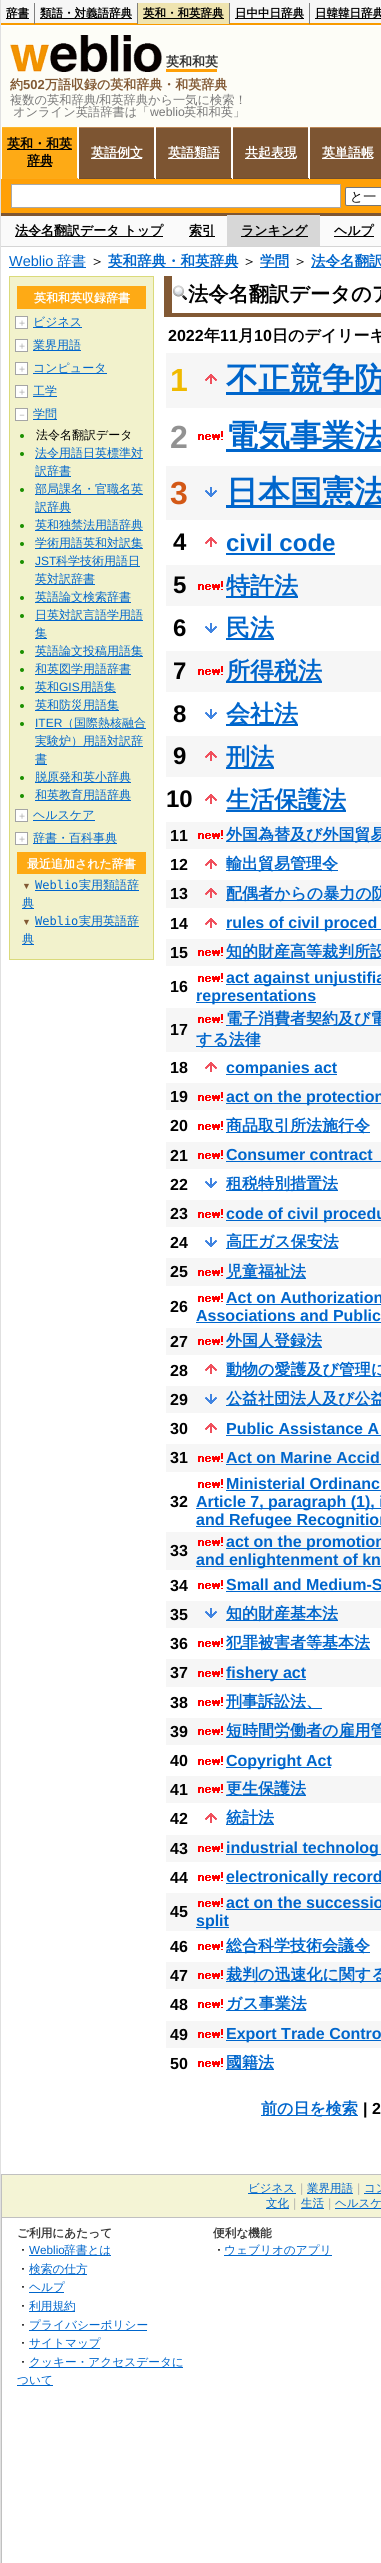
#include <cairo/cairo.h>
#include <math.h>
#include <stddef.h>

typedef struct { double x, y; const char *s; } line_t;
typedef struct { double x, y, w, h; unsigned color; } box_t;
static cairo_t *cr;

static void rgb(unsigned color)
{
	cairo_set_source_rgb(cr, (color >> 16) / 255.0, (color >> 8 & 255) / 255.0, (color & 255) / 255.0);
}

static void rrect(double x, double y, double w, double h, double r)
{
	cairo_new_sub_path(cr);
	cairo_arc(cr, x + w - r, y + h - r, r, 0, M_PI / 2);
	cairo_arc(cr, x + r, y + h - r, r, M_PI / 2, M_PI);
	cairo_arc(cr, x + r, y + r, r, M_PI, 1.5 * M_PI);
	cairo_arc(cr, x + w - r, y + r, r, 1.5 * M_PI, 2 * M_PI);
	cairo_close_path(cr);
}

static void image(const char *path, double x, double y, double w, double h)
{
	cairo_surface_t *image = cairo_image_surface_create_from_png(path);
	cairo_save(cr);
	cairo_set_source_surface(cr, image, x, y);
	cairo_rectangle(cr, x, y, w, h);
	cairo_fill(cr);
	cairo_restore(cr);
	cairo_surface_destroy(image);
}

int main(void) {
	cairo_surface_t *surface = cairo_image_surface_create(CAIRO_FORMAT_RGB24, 381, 2563);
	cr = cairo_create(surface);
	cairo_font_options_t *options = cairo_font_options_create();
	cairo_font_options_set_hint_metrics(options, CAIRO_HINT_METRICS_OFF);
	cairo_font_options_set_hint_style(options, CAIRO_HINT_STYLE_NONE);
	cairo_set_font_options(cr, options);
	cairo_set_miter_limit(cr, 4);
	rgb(0xffffff);
	cairo_paint(cr);
	{
		static const box_t items[] = {
			{0, 0, 1, 2563, 0xe0e0e0},
			{1, 0, 380, 23, 0xf6f6f6},
			{1, 23, 380, 2, 0xf89b01},
			{34, 3, 1, 21, 0x7f7f7f},
			{6, 18, 23, 1, 0x000000},
			{137, 3, 1, 21, 0x7f7f7f},
			{40, 18, 92, 1, 0x000000},
			{138, 3, 91, 21, 0xefe4b0},
			{229, 3, 1, 21, 0x7f7f7f},
			{143, 18, 81, 1, 0x000000},
			{309, 3, 1, 21, 0x7f7f7f},
			{235, 18, 69, 1, 0x000000},
			{315, 18, 66, 1, 0x000000},
			{1, 27, 380, 100, 0xfdfdf7},
		};
		for (size_t i = 0; i < sizeof items / sizeof *items; i++) {
			rgb(items[i].color);
			cairo_rectangle(cr, items[i].x, items[i].y, items[i].w, items[i].h);
			cairo_fill(cr);
		}
	}
	image("img/1.png", 10, 35, 152, 37);
	{
		static const box_t items[] = {
			{166, 69, 51, 3, 0xffa007},
			{2, 128, 75, 50, 0xfeaa15},
			{1, 127, 77, 1, 0xfcb82b},
			{77, 127, 1, 1, 0xffffff},
			{1, 178, 77, 1, 0xfdaa1a},
			{1, 127, 1, 52, 0xffffff},
			{7, 149, 65, 1, 0x000000},
			{27, 166, 25, 1, 0x000000},
			{79, 128, 75, 50, 0x7d5532},
			{78, 127, 303, 1, 0xbb8655},
			{154, 127, 1, 1, 0xffffff},
			{78, 178, 303, 1, 0x724e2e},
			{78, 127, 1, 52, 0xffffff},
			{91, 158, 51, 1, 0xffffff},
			{156, 128, 75, 50, 0x7d5532},
			{231, 127, 1, 1, 0xffffff},
			{155, 127, 1, 52, 0xffffff},
			{168, 158, 51, 1, 0xffffff},
			{233, 128, 75, 50, 0x7d5532},
			{308, 127, 1, 1, 0xffffff},
			{232, 127, 1, 52, 0xffffff},
			{245, 158, 51, 1, 0xffffff},
			{310, 128, 71, 50, 0x7d5532},
			{309, 127, 1, 52, 0xffffff},
			{322, 158, 51, 1, 0xffffff},
			{1, 179, 380, 34, 0xffa007},
			{1, 213, 380, 3, 0x7e5632},
			{12, 185, 328, 22, 0xffffff},
			{11, 184, 330, 1, 0xa9a9a9},
			{340, 184, 1, 24, 0xa9a9a9},
			{11, 207, 330, 1, 0xa9a9a9},
			{11, 184, 1, 24, 0xa9a9a9},
		};
		for (size_t i = 0; i < sizeof items / sizeof *items; i++) {
			rgb(items[i].color);
			cairo_rectangle(cr, items[i].x, items[i].y, items[i].w, items[i].h);
			cairo_fill(cr);
		}
	}
	rgb(0xffffff);
	rrect(345.5, 187.5, 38, 18, 1.5);
	cairo_fill_preserve(cr);
	rgb(0x767676);
	cairo_set_line_width(cr, 1);
	cairo_stroke(cr);
	{
		static const box_t items[] = {
			{1, 216, 380, 30, 0xfafafa},
			{1, 246, 380, 1, 0xd5d5d5},
			{15, 236, 148, 1, 0x000000},
			{189, 236, 26, 1, 0x000000},
			{227, 215, 93, 31, 0xd7d7d7},
			{241, 236, 67, 1, 0x000000},
			{334, 236, 40, 1, 0x000000},
			{9, 267, 77, 1, 0x0066cc},
			{108, 267, 130, 1, 0x0066cc},
			{260, 267, 29, 1, 0x0066cc},
			{311, 267, 70, 1, 0x0066cc},
			{10, 277, 143, 682, 0xf2f2cc},
			{9, 276, 145, 1, 0xdada7b},
			{153, 276, 1, 684, 0xdada7b},
			{9, 276, 1, 678, 0xdada7b},
			{17, 286, 129, 23, 0xfeaa15},
		};
		for (size_t i = 0; i < sizeof items / sizeof *items; i++) {
			rgb(items[i].color);
			cairo_rectangle(cr, items[i].x, items[i].y, items[i].w, items[i].h);
			cairo_fill(cr);
		}
	}
	rgb(0xffffff);
	cairo_rectangle(cr, 15.5, 316.5, 12, 12);
	cairo_fill_preserve(cr);
	rgb(0xa5a5a5);
	cairo_stroke(cr);
	rgb(0x0066cc);
	cairo_rectangle(cr, 33, 327, 49, 1);
	cairo_fill(cr);
	rgb(0xffffff);
	cairo_rectangle(cr, 15.5, 339.5, 12, 12);
	cairo_fill_preserve(cr);
	rgb(0xa5a5a5);
	cairo_stroke(cr);
	rgb(0x0066cc);
	cairo_rectangle(cr, 33, 350, 48, 1);
	cairo_fill(cr);
	rgb(0xffffff);
	cairo_rectangle(cr, 15.5, 362.5, 12, 12);
	cairo_fill_preserve(cr);
	rgb(0xa5a5a5);
	cairo_stroke(cr);
	rgb(0x0066cc);
	cairo_rectangle(cr, 33, 373, 74, 1);
	cairo_fill(cr);
	rgb(0xffffff);
	cairo_rectangle(cr, 15.5, 385.5, 12, 12);
	cairo_fill_preserve(cr);
	rgb(0xa5a5a5);
	cairo_stroke(cr);
	rgb(0x0066cc);
	cairo_rectangle(cr, 33, 396, 24, 1);
	cairo_fill(cr);
	rgb(0xffffff);
	cairo_rectangle(cr, 15.5, 408.5, 12, 12);
	cairo_fill_preserve(cr);
	rgb(0xa5a5a5);
	cairo_stroke(cr);
	rgb(0x0066cc);
	cairo_rectangle(cr, 33, 419, 24, 1);
	cairo_fill(cr);
	rgb(0x1c9000);
	cairo_arc(cr, 22, 436, 2, 0, 2 * M_PI);
	cairo_fill(cr);
	cairo_arc(cr, 22, 454, 2, 0, 2 * M_PI);
	cairo_fill(cr);
	rgb(0x0066cc);
	cairo_rectangle(cr, 35, 458, 108, 1);
	cairo_fill(cr);
	cairo_rectangle(cr, 35, 476, 36, 1);
	cairo_fill(cr);
	rgb(0x1c9000);
	cairo_arc(cr, 22, 490, 2, 0, 2 * M_PI);
	cairo_fill(cr);
	rgb(0x0066cc);
	cairo_rectangle(cr, 35, 494, 108, 1);
	cairo_fill(cr);
	cairo_rectangle(cr, 35, 512, 36, 1);
	cairo_fill(cr);
	rgb(0x1c9000);
	cairo_arc(cr, 22, 526, 2, 0, 2 * M_PI);
	cairo_fill(cr);
	rgb(0x0066cc);
	cairo_rectangle(cr, 35, 530, 108, 1);
	cairo_fill(cr);
	rgb(0x1c9000);
	cairo_arc(cr, 22, 544, 2, 0, 2 * M_PI);
	cairo_fill(cr);
	rgb(0x0066cc);
	cairo_rectangle(cr, 35, 548, 108, 1);
	cairo_fill(cr);
	rgb(0x1c9000);
	cairo_arc(cr, 22, 562, 2, 0, 2 * M_PI);
	cairo_fill(cr);
	rgb(0x0066cc);
	cairo_rectangle(cr, 35, 566, 105, 1);
	cairo_fill(cr);
	cairo_rectangle(cr, 35, 584, 60, 1);
	cairo_fill(cr);
	rgb(0x1c9000);
	cairo_arc(cr, 22, 598, 2, 0, 2 * M_PI);
	cairo_fill(cr);
	rgb(0x0066cc);
	cairo_rectangle(cr, 35, 602, 96, 1);
	cairo_fill(cr);
	rgb(0x1c9000);
	cairo_arc(cr, 22, 616, 2, 0, 2 * M_PI);
	cairo_fill(cr);
	rgb(0x0066cc);
	cairo_rectangle(cr, 35, 620, 108, 1);
	cairo_fill(cr);
	cairo_rectangle(cr, 35, 638, 12, 1);
	cairo_fill(cr);
	rgb(0x1c9000);
	cairo_arc(cr, 22, 652, 2, 0, 2 * M_PI);
	cairo_fill(cr);
	rgb(0x0066cc);
	cairo_rectangle(cr, 35, 656, 108, 1);
	cairo_fill(cr);
	rgb(0x1c9000);
	cairo_arc(cr, 22, 670, 2, 0, 2 * M_PI);
	cairo_fill(cr);
	rgb(0x0066cc);
	cairo_rectangle(cr, 35, 674, 96, 1);
	cairo_fill(cr);
	rgb(0x1c9000);
	cairo_arc(cr, 22, 688, 2, 0, 2 * M_PI);
	cairo_fill(cr);
	rgb(0x0066cc);
	cairo_rectangle(cr, 35, 692, 81, 1);
	cairo_fill(cr);
	rgb(0x1c9000);
	cairo_arc(cr, 22, 706, 2, 0, 2 * M_PI);
	cairo_fill(cr);
	rgb(0x0066cc);
	cairo_rectangle(cr, 35, 710, 84, 1);
	cairo_fill(cr);
	rgb(0x1c9000);
	cairo_arc(cr, 22, 724, 2, 0, 2 * M_PI);
	cairo_fill(cr);
	{
		static const box_t items[] = {
			{35, 728, 111, 1, 0x0066cc},
			{35, 746, 108, 1, 0x0066cc},
			{35, 764, 12, 1, 0x0066cc},
		};
		for (size_t i = 0; i < sizeof items / sizeof *items; i++) {
			rgb(items[i].color);
			cairo_rectangle(cr, items[i].x, items[i].y, items[i].w, items[i].h);
			cairo_fill(cr);
		}
	}
	rgb(0x1c9000);
	cairo_arc(cr, 22, 778, 2, 0, 2 * M_PI);
	cairo_fill(cr);
	rgb(0x0066cc);
	cairo_rectangle(cr, 35, 782, 96, 1);
	cairo_fill(cr);
	rgb(0x1c9000);
	cairo_arc(cr, 22, 796, 2, 0, 2 * M_PI);
	cairo_fill(cr);
	rgb(0x0066cc);
	cairo_rectangle(cr, 35, 800, 96, 1);
	cairo_fill(cr);
	rgb(0xffffff);
	cairo_rectangle(cr, 15.5, 809.5, 12, 12);
	cairo_fill_preserve(cr);
	rgb(0xa5a5a5);
	cairo_stroke(cr);
	rgb(0x0066cc);
	cairo_rectangle(cr, 33, 820, 62, 1);
	cairo_fill(cr);
	rgb(0xffffff);
	cairo_rectangle(cr, 15.5, 832.5, 12, 12);
	cairo_fill_preserve(cr);
	rgb(0xa5a5a5);
	cairo_stroke(cr);
	{
		static const box_t items[] = {
			{33, 843, 84, 1, 0x0066cc},
			{17, 852, 129, 22, 0xfeaa15},
			{35, 890, 104, 1, 0x0066cc},
			{22, 908, 12, 1, 0x0066cc},
			{35, 926, 104, 1, 0x0066cc},
			{22, 944, 12, 1, 0x0066cc},
			{9, 959, 145, 1, 0xdada7b},
			{9, 948, 1, 12, 0xdada7b},
			{164, 313, 217, 4, 0x825934},
			{164, 276, 8, 37, 0x825934},
		};
		for (size_t i = 0; i < sizeof items / sizeof *items; i++) {
			rgb(items[i].color);
			cairo_rectangle(cr, items[i].x, items[i].y, items[i].w, items[i].h);
			cairo_fill(cr);
		}
	}
	image("img/2.png", 173, 285, 14, 15);
	rgb(0xf6f6f6);
	cairo_rectangle(cr, 166, 353, 215, 55);
	cairo_fill(cr);
	image("img/3.png", 205, 374, 12, 10);
	rgb(0x0066cc);
	cairo_rectangle(cr, 226, 392, 155, 3);
	cairo_fill(cr);
	image("img/4.png", 198, 431, 25, 9);
	cairo_rectangle(cr, 226, 449, 155, 3);
	cairo_fill(cr);
	rgb(0xf6f6f6);
	cairo_rectangle(cr, 166, 466, 215, 54);
	cairo_fill(cr);
	image("img/5.png", 205, 487, 12, 10);
	rgb(0x0066cc);
	cairo_rectangle(cr, 226, 505, 155, 3);
	cairo_fill(cr);
	image("img/6.png", 205, 537, 12, 10);
	cairo_rectangle(cr, 226, 553, 109, 2);
	cairo_fill(cr);
	rgb(0xf6f6f6);
	cairo_rectangle(cr, 166, 565, 215, 41);
	cairo_fill(cr);
	image("img/7.png", 198, 581, 25, 9);
	rgb(0x0066cc);
	cairo_rectangle(cr, 226, 596, 72, 2);
	cairo_fill(cr);
	image("img/8.png", 205, 623, 12, 10);
	cairo_rectangle(cr, 226, 638, 48, 2);
	cairo_fill(cr);
	rgb(0xf6f6f6);
	cairo_rectangle(cr, 166, 651, 215, 41);
	cairo_fill(cr);
	image("img/7.png", 198, 666, 25, 9);
	rgb(0x0066cc);
	cairo_rectangle(cr, 226, 681, 96, 2);
	cairo_fill(cr);
	image("img/8.png", 205, 709, 12, 10);
	cairo_rectangle(cr, 226, 724, 72, 2);
	cairo_fill(cr);
	rgb(0xf6f6f6);
	cairo_rectangle(cr, 166, 736, 215, 41);
	cairo_fill(cr);
	image("img/3.png", 205, 751, 12, 10);
	rgb(0x0066cc);
	cairo_rectangle(cr, 226, 767, 48, 2);
	cairo_fill(cr);
	image("img/6.png", 205, 794, 12, 10);
	cairo_rectangle(cr, 226, 810, 120, 2);
	cairo_fill(cr);
	rgb(0xf6f6f6);
	cairo_rectangle(cr, 166, 822, 215, 27);
	cairo_fill(cr);
	image("img/7.png", 198, 830, 25, 9);
	rgb(0x0066cc);
	cairo_rectangle(cr, 226, 841, 155, 1);
	cairo_fill(cr);
	image("img/6.png", 205, 859, 12, 10);
	cairo_rectangle(cr, 226, 870, 112, 1);
	cairo_fill(cr);
	rgb(0xf6f6f6);
	cairo_rectangle(cr, 166, 880, 215, 28);
	cairo_fill(cr);
	image("img/3.png", 205, 888, 12, 10);
	rgb(0x0066cc);
	cairo_rectangle(cr, 226, 900, 155, 1);
	cairo_fill(cr);
	image("img/6.png", 205, 918, 12, 10);
	cairo_rectangle(cr, 226, 929, 155, 1);
	cairo_fill(cr);
	rgb(0xf6f6f6);
	cairo_rectangle(cr, 166, 939, 215, 27);
	cairo_fill(cr);
	image("img/7.png", 198, 947, 25, 9);
	rgb(0x0066cc);
	cairo_rectangle(cr, 226, 958, 155, 1);
	cairo_fill(cr);
	image("img/4.png", 198, 973, 25, 9);
	{
		static const box_t items[] = {
			{226, 984, 155, 1, 0x0066cc},
			{196, 1002, 120, 1, 0x0066cc},
			{166, 1008, 215, 44, 0xf6f6f6},
		};
		for (size_t i = 0; i < sizeof items / sizeof *items; i++) {
			rgb(items[i].color);
			cairo_rectangle(cr, items[i].x, items[i].y, items[i].w, items[i].h);
			cairo_fill(cr);
		}
	}
	image("img/7.png", 198, 1014, 25, 9);
	rgb(0x0066cc);
	cairo_rectangle(cr, 226, 1025, 155, 1);
	cairo_fill(cr);
	cairo_rectangle(cr, 196, 1046, 64, 1);
	cairo_fill(cr);
	image("img/6.png", 205, 1062, 12, 10);
	cairo_rectangle(cr, 226, 1074, 111, 1);
	cairo_fill(cr);
	rgb(0xf6f6f6);
	cairo_rectangle(cr, 166, 1083, 215, 27);
	cairo_fill(cr);
	image("img/7.png", 198, 1092, 25, 9);
	rgb(0x0066cc);
	cairo_rectangle(cr, 226, 1103, 155, 1);
	cairo_fill(cr);
	image("img/4.png", 198, 1121, 25, 9);
	cairo_rectangle(cr, 226, 1132, 144, 1);
	cairo_fill(cr);
	rgb(0xf6f6f6);
	cairo_rectangle(cr, 166, 1142, 215, 27);
	cairo_fill(cr);
	image("img/7.png", 198, 1150, 25, 9);
	rgb(0x0066cc);
	cairo_rectangle(cr, 226, 1161, 155, 1);
	cairo_fill(cr);
	image("img/8.png", 205, 1178, 12, 10);
	cairo_rectangle(cr, 226, 1190, 112, 1);
	cairo_fill(cr);
	rgb(0xf6f6f6);
	cairo_rectangle(cr, 166, 1200, 215, 27);
	cairo_fill(cr);
	image("img/7.png", 198, 1209, 25, 9);
	rgb(0x0066cc);
	cairo_rectangle(cr, 226, 1220, 155, 1);
	cairo_fill(cr);
	image("img/8.png", 205, 1237, 12, 10);
	cairo_rectangle(cr, 226, 1248, 112, 1);
	cairo_fill(cr);
	rgb(0xf6f6f6);
	cairo_rectangle(cr, 166, 1258, 215, 28);
	cairo_fill(cr);
	image("img/7.png", 198, 1267, 25, 9);
	rgb(0x0066cc);
	cairo_rectangle(cr, 226, 1278, 80, 1);
	cairo_fill(cr);
	image("img/4.png", 198, 1293, 25, 9);
	{
		static const box_t items[] = {
			{226, 1304, 155, 1, 0x0066cc},
			{196, 1322, 185, 1, 0x0066cc},
			{166, 1328, 215, 27, 0xf6f6f6},
		};
		for (size_t i = 0; i < sizeof items / sizeof *items; i++) {
			rgb(items[i].color);
			cairo_rectangle(cr, items[i].x, items[i].y, items[i].w, items[i].h);
			cairo_fill(cr);
		}
	}
	image("img/7.png", 198, 1336, 25, 9);
	rgb(0x0066cc);
	cairo_rectangle(cr, 226, 1347, 96, 1);
	cairo_fill(cr);
	image("img/6.png", 205, 1364, 12, 10);
	cairo_rectangle(cr, 226, 1376, 155, 1);
	cairo_fill(cr);
	rgb(0xf6f6f6);
	cairo_rectangle(cr, 166, 1386, 215, 27);
	cairo_fill(cr);
	image("img/5.png", 205, 1394, 12, 10);
	rgb(0x0066cc);
	cairo_rectangle(cr, 226, 1405, 155, 1);
	cairo_fill(cr);
	image("img/6.png", 205, 1423, 12, 10);
	cairo_rectangle(cr, 226, 1435, 155, 1);
	cairo_fill(cr);
	rgb(0xf6f6f6);
	cairo_rectangle(cr, 166, 1444, 215, 28);
	cairo_fill(cr);
	image("img/7.png", 198, 1453, 25, 9);
	rgb(0x0066cc);
	cairo_rectangle(cr, 226, 1464, 155, 1);
	cairo_fill(cr);
	image("img/4.png", 198, 1479, 25, 9);
	{
		static const box_t items[] = {
			{226, 1490, 155, 1, 0x0066cc},
			{196, 1508, 185, 1, 0x0066cc},
			{196, 1526, 185, 1, 0x0066cc},
			{166, 1532, 215, 38, 0xf6f6f6},
		};
		for (size_t i = 0; i < sizeof items / sizeof *items; i++) {
			rgb(items[i].color);
			cairo_rectangle(cr, items[i].x, items[i].y, items[i].w, items[i].h);
			cairo_fill(cr);
		}
	}
	image("img/7.png", 198, 1537, 25, 9);
	rgb(0x0066cc);
	cairo_rectangle(cr, 226, 1548, 155, 1);
	cairo_fill(cr);
	cairo_rectangle(cr, 196, 1566, 185, 1);
	cairo_fill(cr);
	image("img/4.png", 198, 1580, 25, 9);
	cairo_rectangle(cr, 226, 1591, 155, 1);
	cairo_fill(cr);
	rgb(0xf6f6f6);
	cairo_rectangle(cr, 166, 1601, 215, 27);
	cairo_fill(cr);
	image("img/5.png", 205, 1608, 12, 10);
	rgb(0x0066cc);
	cairo_rectangle(cr, 226, 1620, 112, 1);
	cairo_fill(cr);
	image("img/4.png", 198, 1638, 25, 9);
	cairo_rectangle(cr, 226, 1649, 144, 1);
	cairo_fill(cr);
	rgb(0xf6f6f6);
	cairo_rectangle(cr, 166, 1659, 215, 28);
	cairo_fill(cr);
	image("img/7.png", 198, 1668, 25, 9);
	rgb(0x0066cc);
	cairo_rectangle(cr, 226, 1679, 80, 1);
	cairo_fill(cr);
	image("img/4.png", 198, 1697, 25, 9);
	cairo_rectangle(cr, 226, 1708, 96, 1);
	cairo_fill(cr);
	rgb(0xf6f6f6);
	cairo_rectangle(cr, 166, 1718, 215, 27);
	cairo_fill(cr);
	image("img/7.png", 198, 1726, 25, 9);
	rgb(0x0066cc);
	cairo_rectangle(cr, 226, 1737, 155, 1);
	cairo_fill(cr);
	image("img/4.png", 198, 1756, 25, 9);
	cairo_rectangle(cr, 226, 1767, 105, 1);
	cairo_fill(cr);
	rgb(0xf6f6f6);
	cairo_rectangle(cr, 166, 1776, 215, 27);
	cairo_fill(cr);
	image("img/7.png", 198, 1784, 25, 9);
	rgb(0x0066cc);
	cairo_rectangle(cr, 226, 1795, 80, 1);
	cairo_fill(cr);
	image("img/6.png", 205, 1813, 12, 10);
	cairo_rectangle(cr, 226, 1824, 48, 1);
	cairo_fill(cr);
	rgb(0xf6f6f6);
	cairo_rectangle(cr, 166, 1835, 215, 27);
	cairo_fill(cr);
	image("img/7.png", 198, 1843, 25, 9);
	rgb(0x0066cc);
	cairo_rectangle(cr, 226, 1854, 155, 1);
	cairo_fill(cr);
	image("img/4.png", 198, 1872, 25, 9);
	cairo_rectangle(cr, 226, 1883, 155, 1);
	cairo_fill(cr);
	rgb(0xf6f6f6);
	cairo_rectangle(cr, 166, 1893, 215, 38);
	cairo_fill(cr);
	image("img/7.png", 198, 1898, 25, 9);
	rgb(0x0066cc);
	cairo_rectangle(cr, 226, 1909, 155, 1);
	cairo_fill(cr);
	cairo_rectangle(cr, 196, 1927, 33, 1);
	cairo_fill(cr);
	image("img/4.png", 198, 1941, 25, 9);
	cairo_rectangle(cr, 226, 1952, 144, 1);
	cairo_fill(cr);
	rgb(0xf6f6f6);
	cairo_rectangle(cr, 166, 1962, 215, 27);
	cairo_fill(cr);
	image("img/7.png", 198, 1970, 25, 9);
	rgb(0x0066cc);
	cairo_rectangle(cr, 226, 1981, 155, 1);
	cairo_fill(cr);
	image("img/4.png", 198, 1999, 25, 9);
	cairo_rectangle(cr, 226, 2010, 80, 1);
	cairo_fill(cr);
	rgb(0xf6f6f6);
	cairo_rectangle(cr, 166, 2021, 215, 27);
	cairo_fill(cr);
	image("img/7.png", 198, 2029, 25, 9);
	rgb(0x0066cc);
	cairo_rectangle(cr, 226, 2040, 155, 1);
	cairo_fill(cr);
	image("img/4.png", 198, 2058, 25, 9);
	cairo_rectangle(cr, 226, 2069, 48, 1);
	cairo_fill(cr);
	cairo_rectangle(cr, 261, 2115, 97, 1);
	cairo_fill(cr);
	cairo_rectangle(cr, 1.5, 2174.5, 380, 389);
	rgb(0xc0c0c0);
	cairo_stroke(cr);
	{
		static const box_t items[] = {
			{2, 2175, 379, 42, 0xf4f4d5},
			{2, 2217, 379, 1, 0xc0c0c0},
			{248, 2193, 48, 1, 0x0066cc},
			{307, 2193, 46, 1, 0x0066cc},
			{364, 2193, 17, 1, 0x0066cc},
			{266, 2208, 23, 1, 0x0066cc},
			{301, 2208, 23, 1, 0x0066cc},
			{335, 2208, 46, 1, 0x0066cc},
			{29, 2255, 82, 1, 0x0066cc},
			{29, 2274, 58, 1, 0x0066cc},
			{29, 2292, 35, 1, 0x0066cc},
			{29, 2311, 46, 1, 0x0066cc},
			{29, 2330, 118, 1, 0x0066cc},
			{29, 2348, 71, 1, 0x0066cc},
			{29, 2367, 154, 1, 0x0066cc},
			{17, 2385, 36, 1, 0x0066cc},
			{224, 2255, 108, 1, 0x0066cc},
		};
		for (size_t i = 0; i < sizeof items / sizeof *items; i++) {
			rgb(items[i].color);
			cairo_rectangle(cr, items[i].x, items[i].y, items[i].w, items[i].h);
			cairo_fill(cr);
		}
	}
	cairo_select_font_face(cr, "WenQuanYi Zen Hei", CAIRO_FONT_SLANT_NORMAL, CAIRO_FONT_WEIGHT_BOLD);
	cairo_set_font_size(cr, 11.5);
	rgb(0x000000);
	{
		static const line_t items[] = {
			{6, 17, "辞書"},
			{40, 17, "類語・対義語辞典"},
			{143, 17, "英和・和英辞典"},
			{235, 17, "日中中日辞典"},
			{315, 17, "日韓韓日辞典"},
		};
		for (size_t i = 0; i < sizeof items / sizeof *items; i++) {
			cairo_move_to(cr, items[i].x, items[i].y);
			cairo_show_text(cr, items[i].s);
		}
	}
	cairo_set_font_size(cr, 13);
	rgb(0x333333);
	cairo_move_to(cr, 166, 66);
	cairo_show_text(cr, "英和和英");
	rgb(0x825934);
	cairo_move_to(cr, 10, 89);
	cairo_show_text(cr, "約");
	cairo_select_font_face(cr, "Liberation Sans", CAIRO_FONT_SLANT_NORMAL, CAIRO_FONT_WEIGHT_BOLD);
	cairo_move_to(cr, 23, 89);
	cairo_show_text(cr, "502");
	cairo_select_font_face(cr, "WenQuanYi Zen Hei", CAIRO_FONT_SLANT_NORMAL, CAIRO_FONT_WEIGHT_BOLD);
	cairo_move_to(cr, 45, 89);
	cairo_show_text(cr, "万語収録の英和辞典・和英辞典");
	cairo_select_font_face(cr, "WenQuanYi Zen Hei Medium", CAIRO_FONT_SLANT_NORMAL, CAIRO_FONT_WEIGHT_NORMAL);
	cairo_set_font_size(cr, 12.25);
	rgb(0x777777);
	cairo_move_to(cr, 10, 104);
	cairo_show_text(cr, "複数の英和辞典");
	cairo_select_font_face(cr, "Liberation Sans", CAIRO_FONT_SLANT_NORMAL, CAIRO_FONT_WEIGHT_NORMAL);
	cairo_move_to(cr, 96, 104);
	cairo_show_text(cr, "/");
	cairo_select_font_face(cr, "WenQuanYi Zen Hei Medium", CAIRO_FONT_SLANT_NORMAL, CAIRO_FONT_WEIGHT_NORMAL);
	cairo_move_to(cr, 99, 104);
	cairo_show_text(cr, "和英辞典から一気に検索！");
	cairo_move_to(cr, 13, 116);
	cairo_show_text(cr, "オンライン英語辞書は「");
	cairo_select_font_face(cr, "Liberation Sans", CAIRO_FONT_SLANT_NORMAL, CAIRO_FONT_WEIGHT_NORMAL);
	cairo_move_to(cr, 150, 116);
	cairo_show_text(cr, "weblio");
	cairo_select_font_face(cr, "WenQuanYi Zen Hei Medium", CAIRO_FONT_SLANT_NORMAL, CAIRO_FONT_WEIGHT_NORMAL);
	cairo_move_to(cr, 184, 116);
	cairo_show_text(cr, "英和和英」");
	cairo_select_font_face(cr, "WenQuanYi Zen Hei", CAIRO_FONT_SLANT_NORMAL, CAIRO_FONT_WEIGHT_BOLD);
	cairo_set_font_size(cr, 13);
	rgb(0x000000);
	cairo_move_to(cr, 7, 148);
	cairo_show_text(cr, "英和・和英");
	cairo_move_to(cr, 27, 165);
	cairo_show_text(cr, "辞典");
	rgb(0xffffff);
	{
		static const line_t items[] = {
			{91, 157, "英語例文"},
			{168, 157, "英語類語"},
			{245, 157, "共起表現"},
			{322, 157, "英単語帳"},
		};
		for (size_t i = 0; i < sizeof items / sizeof *items; i++) {
			cairo_move_to(cr, items[i].x, items[i].y);
			cairo_show_text(cr, items[i].s);
		}
	}
	cairo_select_font_face(cr, "WenQuanYi Zen Hei Medium", CAIRO_FONT_SLANT_NORMAL, CAIRO_FONT_WEIGHT_NORMAL);
	rgb(0x000000);
	cairo_move_to(cr, 350, 201);
	cairo_show_text(cr, "と一");
	cairo_select_font_face(cr, "WenQuanYi Zen Hei", CAIRO_FONT_SLANT_NORMAL, CAIRO_FONT_WEIGHT_BOLD);
	{
		static const line_t items[] = {
			{15, 235, "法令名翻訳データ トップ"},
			{189, 235, "索引"},
			{241, 235, "ランキング"},
			{334, 235, "ヘルプ"},
		};
		for (size_t i = 0; i < sizeof items / sizeof *items; i++) {
			cairo_move_to(cr, items[i].x, items[i].y);
			cairo_show_text(cr, items[i].s);
		}
	}
	cairo_select_font_face(cr, "Liberation Sans", CAIRO_FONT_SLANT_NORMAL, CAIRO_FONT_WEIGHT_NORMAL);
	cairo_set_font_size(cr, 14.5);
	rgb(0x0066cc);
	cairo_move_to(cr, 9, 266);
	cairo_show_text(cr, "Weblio");
	cairo_select_font_face(cr, "WenQuanYi Zen Hei Medium", CAIRO_FONT_SLANT_NORMAL, CAIRO_FONT_WEIGHT_NORMAL);
	cairo_move_to(cr, 57, 266);
	cairo_show_text(cr, "辞書");
	rgb(0x000000);
	cairo_move_to(cr, 90, 266);
	cairo_show_text(cr, "＞");
	cairo_select_font_face(cr, "WenQuanYi Zen Hei", CAIRO_FONT_SLANT_NORMAL, CAIRO_FONT_WEIGHT_BOLD);
	rgb(0x0066cc);
	cairo_move_to(cr, 108, 266);
	cairo_show_text(cr, "英和辞典・和英辞典");
	cairo_select_font_face(cr, "WenQuanYi Zen Hei Medium", CAIRO_FONT_SLANT_NORMAL, CAIRO_FONT_WEIGHT_NORMAL);
	rgb(0x000000);
	cairo_move_to(cr, 242, 266);
	cairo_show_text(cr, "＞");
	cairo_select_font_face(cr, "WenQuanYi Zen Hei", CAIRO_FONT_SLANT_NORMAL, CAIRO_FONT_WEIGHT_BOLD);
	rgb(0x0066cc);
	cairo_move_to(cr, 260, 266);
	cairo_show_text(cr, "学問");
	cairo_select_font_face(cr, "WenQuanYi Zen Hei Medium", CAIRO_FONT_SLANT_NORMAL, CAIRO_FONT_WEIGHT_NORMAL);
	rgb(0x000000);
	cairo_move_to(cr, 293, 266);
	cairo_show_text(cr, "＞");
	cairo_select_font_face(cr, "WenQuanYi Zen Hei", CAIRO_FONT_SLANT_NORMAL, CAIRO_FONT_WEIGHT_BOLD);
	rgb(0x0066cc);
	cairo_move_to(cr, 311, 266);
	cairo_show_text(cr, "法令名翻訳");
	cairo_set_font_size(cr, 12);
	rgb(0xffffff);
	cairo_move_to(cr, 34, 302);
	cairo_show_text(cr, "英和和英収録辞書");
	cairo_select_font_face(cr, "WenQuanYi Zen Hei Medium", CAIRO_FONT_SLANT_NORMAL, CAIRO_FONT_WEIGHT_NORMAL);
	cairo_set_font_size(cr, 10);
	rgb(0xa5a5a5);
	cairo_move_to(cr, 17, 326);
	cairo_show_text(cr, "＋");
	cairo_set_font_size(cr, 12);
	rgb(0x0066cc);
	cairo_move_to(cr, 33, 326);
	cairo_show_text(cr, "ビジネス");
	cairo_set_font_size(cr, 10);
	rgb(0xa5a5a5);
	cairo_move_to(cr, 17, 349);
	cairo_show_text(cr, "＋");
	cairo_set_font_size(cr, 12);
	rgb(0x0066cc);
	cairo_move_to(cr, 33, 349);
	cairo_show_text(cr, "業界用語");
	cairo_set_font_size(cr, 10);
	rgb(0xa5a5a5);
	cairo_move_to(cr, 17, 372);
	cairo_show_text(cr, "＋");
	cairo_set_font_size(cr, 12);
	rgb(0x0066cc);
	cairo_move_to(cr, 33, 372);
	cairo_show_text(cr, "コンピュータ");
	cairo_set_font_size(cr, 10);
	rgb(0xa5a5a5);
	cairo_move_to(cr, 17, 395);
	cairo_show_text(cr, "＋");
	cairo_set_font_size(cr, 12);
	rgb(0x0066cc);
	cairo_move_to(cr, 33, 395);
	cairo_show_text(cr, "工学");
	cairo_set_font_size(cr, 10);
	rgb(0xa5a5a5);
	cairo_move_to(cr, 17, 418);
	cairo_show_text(cr, "－");
	cairo_set_font_size(cr, 12);
	rgb(0x0066cc);
	cairo_move_to(cr, 33, 418);
	cairo_show_text(cr, "学問");
	rgb(0x000000);
	cairo_move_to(cr, 36, 439);
	cairo_show_text(cr, "法令名翻訳データ");
	rgb(0x0066cc);
	{
		static const line_t items[] = {
			{35, 457, "法令用語日英標準対"},
			{35, 475, "訳辞書"},
			{35, 493, "部局課名・官職名英"},
			{35, 511, "訳辞典"},
			{35, 529, "英和独禁法用語辞典"},
			{35, 547, "学術用語英和対訳集"},
		};
		for (size_t i = 0; i < sizeof items / sizeof *items; i++) {
			cairo_move_to(cr, items[i].x, items[i].y);
			cairo_show_text(cr, items[i].s);
		}
	}
	cairo_select_font_face(cr, "Liberation Sans", CAIRO_FONT_SLANT_NORMAL, CAIRO_FONT_WEIGHT_NORMAL);
	cairo_move_to(cr, 35, 565);
	cairo_show_text(cr, "JST");
	cairo_select_font_face(cr, "WenQuanYi Zen Hei Medium", CAIRO_FONT_SLANT_NORMAL, CAIRO_FONT_WEIGHT_NORMAL);
	{
		static const line_t items[] = {
			{56, 565, "科学技術用語日"},
			{35, 583, "英対訳辞書"},
			{35, 601, "英語論文検索辞書"},
			{35, 619, "日英対訳言語学用語"},
			{35, 637, "集"},
			{35, 655, "英語論文投稿用語集"},
			{35, 673, "和英図学用語辞書"},
			{35, 691, "英和"},
		};
		for (size_t i = 0; i < sizeof items / sizeof *items; i++) {
			cairo_move_to(cr, items[i].x, items[i].y);
			cairo_show_text(cr, items[i].s);
		}
	}
	cairo_select_font_face(cr, "Liberation Sans", CAIRO_FONT_SLANT_NORMAL, CAIRO_FONT_WEIGHT_NORMAL);
	cairo_move_to(cr, 59, 691);
	cairo_show_text(cr, "GIS");
	cairo_select_font_face(cr, "WenQuanYi Zen Hei Medium", CAIRO_FONT_SLANT_NORMAL, CAIRO_FONT_WEIGHT_NORMAL);
	cairo_move_to(cr, 80, 691);
	cairo_show_text(cr, "用語集");
	cairo_move_to(cr, 35, 709);
	cairo_show_text(cr, "英和防災用語集");
	cairo_select_font_face(cr, "Liberation Sans", CAIRO_FONT_SLANT_NORMAL, CAIRO_FONT_WEIGHT_NORMAL);
	cairo_move_to(cr, 35, 727);
	cairo_show_text(cr, "ITER");
	cairo_select_font_face(cr, "WenQuanYi Zen Hei Medium", CAIRO_FONT_SLANT_NORMAL, CAIRO_FONT_WEIGHT_NORMAL);
	{
		static const line_t items[] = {
			{62, 727, "（国際熱核融合"},
			{35, 745, "実験炉）用語対訳辞"},
			{35, 763, "書"},
			{35, 781, "脱原発和英小辞典"},
			{35, 799, "和英教育用語辞典"},
		};
		for (size_t i = 0; i < sizeof items / sizeof *items; i++) {
			cairo_move_to(cr, items[i].x, items[i].y);
			cairo_show_text(cr, items[i].s);
		}
	}
	cairo_set_font_size(cr, 10);
	rgb(0xa5a5a5);
	cairo_move_to(cr, 17, 819);
	cairo_show_text(cr, "＋");
	cairo_set_font_size(cr, 12);
	rgb(0x0066cc);
	cairo_move_to(cr, 33, 819);
	cairo_show_text(cr, "ヘルスケア");
	cairo_set_font_size(cr, 10);
	rgb(0xa5a5a5);
	cairo_move_to(cr, 17, 842);
	cairo_show_text(cr, "＋");
	cairo_set_font_size(cr, 12);
	rgb(0x0066cc);
	cairo_move_to(cr, 33, 842);
	cairo_show_text(cr, "辞書・百科事典");
	cairo_select_font_face(cr, "WenQuanYi Zen Hei", CAIRO_FONT_SLANT_NORMAL, CAIRO_FONT_WEIGHT_BOLD);
	rgb(0xffffff);
	cairo_move_to(cr, 27, 868);
	cairo_show_text(cr, "最近追加された辞書");
	cairo_select_font_face(cr, "Liberation Sans", CAIRO_FONT_SLANT_NORMAL, CAIRO_FONT_WEIGHT_NORMAL);
	cairo_set_font_size(cr, 9);
	rgb(0x825934);
	cairo_move_to(cr, 22, 889);
	cairo_show_text(cr, "▼");
	cairo_select_font_face(cr, "DejaVu Sans Mono", CAIRO_FONT_SLANT_NORMAL, CAIRO_FONT_WEIGHT_NORMAL);
	cairo_set_font_size(cr, 12);
	rgb(0x0066cc);
	cairo_move_to(cr, 35, 889);
	cairo_show_text(cr, "Weblio");
	cairo_select_font_face(cr, "WenQuanYi Zen Hei Medium", CAIRO_FONT_SLANT_NORMAL, CAIRO_FONT_WEIGHT_NORMAL);
	cairo_move_to(cr, 79, 889);
	cairo_show_text(cr, "実用類語辞");
	cairo_move_to(cr, 22, 907);
	cairo_show_text(cr, "典");
	cairo_select_font_face(cr, "Liberation Sans", CAIRO_FONT_SLANT_NORMAL, CAIRO_FONT_WEIGHT_NORMAL);
	cairo_set_font_size(cr, 9);
	rgb(0x825934);
	cairo_move_to(cr, 22, 925);
	cairo_show_text(cr, "▼");
	cairo_select_font_face(cr, "DejaVu Sans Mono", CAIRO_FONT_SLANT_NORMAL, CAIRO_FONT_WEIGHT_NORMAL);
	cairo_set_font_size(cr, 12);
	rgb(0x0066cc);
	cairo_move_to(cr, 35, 925);
	cairo_show_text(cr, "Weblio");
	cairo_select_font_face(cr, "WenQuanYi Zen Hei Medium", CAIRO_FONT_SLANT_NORMAL, CAIRO_FONT_WEIGHT_NORMAL);
	cairo_move_to(cr, 79, 925);
	cairo_show_text(cr, "実用英語辞");
	cairo_move_to(cr, 22, 943);
	cairo_show_text(cr, "典");
	cairo_select_font_face(cr, "WenQuanYi Zen Hei", CAIRO_FONT_SLANT_NORMAL, CAIRO_FONT_WEIGHT_BOLD);
	cairo_set_font_size(cr, 20.25);
	rgb(0x000000);
	cairo_move_to(cr, 188, 301);
	cairo_show_text(cr, "法令名翻訳データのア");
	cairo_select_font_face(cr, "Liberation Sans", CAIRO_FONT_SLANT_NORMAL, CAIRO_FONT_WEIGHT_BOLD);
	cairo_set_font_size(cr, 16);
	cairo_move_to(cr, 168, 341);
	cairo_show_text(cr, "2022");
	cairo_select_font_face(cr, "WenQuanYi Zen Hei", CAIRO_FONT_SLANT_NORMAL, CAIRO_FONT_WEIGHT_BOLD);
	cairo_move_to(cr, 204, 341);
	cairo_show_text(cr, "年");
	cairo_select_font_face(cr, "Liberation Sans", CAIRO_FONT_SLANT_NORMAL, CAIRO_FONT_WEIGHT_BOLD);
	cairo_move_to(cr, 220, 341);
	cairo_show_text(cr, "11");
	cairo_select_font_face(cr, "WenQuanYi Zen Hei", CAIRO_FONT_SLANT_NORMAL, CAIRO_FONT_WEIGHT_BOLD);
	cairo_move_to(cr, 238, 341);
	cairo_show_text(cr, "月");
	cairo_select_font_face(cr, "Liberation Sans", CAIRO_FONT_SLANT_NORMAL, CAIRO_FONT_WEIGHT_BOLD);
	cairo_move_to(cr, 254, 341);
	cairo_show_text(cr, "10");
	cairo_select_font_face(cr, "WenQuanYi Zen Hei", CAIRO_FONT_SLANT_NORMAL, CAIRO_FONT_WEIGHT_BOLD);
	cairo_move_to(cr, 272, 341);
	cairo_show_text(cr, "日のデイリーキ");
	cairo_select_font_face(cr, "Liberation Sans", CAIRO_FONT_SLANT_NORMAL, CAIRO_FONT_WEIGHT_BOLD);
	cairo_set_font_size(cr, 32);
	rgb(0xf0ba00);
	cairo_move_to(cr, 170, 391);
	cairo_show_text(cr, "1");
	cairo_select_font_face(cr, "WenQuanYi Zen Hei", CAIRO_FONT_SLANT_NORMAL, CAIRO_FONT_WEIGHT_BOLD);
	rgb(0x0066cc);
	cairo_move_to(cr, 226, 390);
	cairo_show_text(cr, "不正競争防");
	cairo_select_font_face(cr, "Liberation Sans", CAIRO_FONT_SLANT_NORMAL, CAIRO_FONT_WEIGHT_BOLD);
	rgb(0x929292);
	cairo_move_to(cr, 170, 448);
	cairo_show_text(cr, "2");
	cairo_select_font_face(cr, "WenQuanYi Zen Hei", CAIRO_FONT_SLANT_NORMAL, CAIRO_FONT_WEIGHT_BOLD);
	rgb(0x0066cc);
	cairo_move_to(cr, 226, 447);
	cairo_show_text(cr, "電気事業法");
	cairo_select_font_face(cr, "Liberation Sans", CAIRO_FONT_SLANT_NORMAL, CAIRO_FONT_WEIGHT_BOLD);
	rgb(0xd35816);
	cairo_move_to(cr, 170, 504);
	cairo_show_text(cr, "3");
	cairo_select_font_face(cr, "WenQuanYi Zen Hei", CAIRO_FONT_SLANT_NORMAL, CAIRO_FONT_WEIGHT_BOLD);
	rgb(0x0066cc);
	cairo_move_to(cr, 226, 503);
	cairo_show_text(cr, "日本国憲法");
	cairo_select_font_face(cr, "Liberation Sans", CAIRO_FONT_SLANT_NORMAL, CAIRO_FONT_WEIGHT_BOLD);
	cairo_set_font_size(cr, 24);
	rgb(0x000000);
	cairo_move_to(cr, 173, 550);
	cairo_show_text(cr, "4");
	rgb(0x0066cc);
	cairo_move_to(cr, 226, 551);
	cairo_show_text(cr, "civil code");
	rgb(0x000000);
	cairo_move_to(cr, 173, 593);
	cairo_show_text(cr, "5");
	cairo_select_font_face(cr, "WenQuanYi Zen Hei", CAIRO_FONT_SLANT_NORMAL, CAIRO_FONT_WEIGHT_BOLD);
	rgb(0x0066cc);
	cairo_move_to(cr, 226, 594);
	cairo_show_text(cr, "特許法");
	cairo_select_font_face(cr, "Liberation Sans", CAIRO_FONT_SLANT_NORMAL, CAIRO_FONT_WEIGHT_BOLD);
	rgb(0x000000);
	cairo_move_to(cr, 173, 636);
	cairo_show_text(cr, "6");
	cairo_select_font_face(cr, "WenQuanYi Zen Hei", CAIRO_FONT_SLANT_NORMAL, CAIRO_FONT_WEIGHT_BOLD);
	rgb(0x0066cc);
	cairo_move_to(cr, 226, 636);
	cairo_show_text(cr, "民法");
	cairo_select_font_face(cr, "Liberation Sans", CAIRO_FONT_SLANT_NORMAL, CAIRO_FONT_WEIGHT_BOLD);
	rgb(0x000000);
	cairo_move_to(cr, 173, 679);
	cairo_show_text(cr, "7");
	cairo_select_font_face(cr, "WenQuanYi Zen Hei", CAIRO_FONT_SLANT_NORMAL, CAIRO_FONT_WEIGHT_BOLD);
	rgb(0x0066cc);
	cairo_move_to(cr, 226, 679);
	cairo_show_text(cr, "所得税法");
	cairo_select_font_face(cr, "Liberation Sans", CAIRO_FONT_SLANT_NORMAL, CAIRO_FONT_WEIGHT_BOLD);
	rgb(0x000000);
	cairo_move_to(cr, 173, 722);
	cairo_show_text(cr, "8");
	cairo_select_font_face(cr, "WenQuanYi Zen Hei", CAIRO_FONT_SLANT_NORMAL, CAIRO_FONT_WEIGHT_BOLD);
	rgb(0x0066cc);
	cairo_move_to(cr, 226, 722);
	cairo_show_text(cr, "会社法");
	cairo_select_font_face(cr, "Liberation Sans", CAIRO_FONT_SLANT_NORMAL, CAIRO_FONT_WEIGHT_BOLD);
	rgb(0x000000);
	cairo_move_to(cr, 173, 764);
	cairo_show_text(cr, "9");
	cairo_select_font_face(cr, "WenQuanYi Zen Hei", CAIRO_FONT_SLANT_NORMAL, CAIRO_FONT_WEIGHT_BOLD);
	rgb(0x0066cc);
	cairo_move_to(cr, 226, 765);
	cairo_show_text(cr, "刑法");
	cairo_select_font_face(cr, "Liberation Sans", CAIRO_FONT_SLANT_NORMAL, CAIRO_FONT_WEIGHT_BOLD);
	rgb(0x000000);
	cairo_move_to(cr, 166, 807);
	cairo_show_text(cr, "10");
	cairo_select_font_face(cr, "WenQuanYi Zen Hei", CAIRO_FONT_SLANT_NORMAL, CAIRO_FONT_WEIGHT_BOLD);
	rgb(0x0066cc);
	cairo_move_to(cr, 226, 808);
	cairo_show_text(cr, "生活保護法");
	cairo_select_font_face(cr, "Liberation Sans", CAIRO_FONT_SLANT_NORMAL, CAIRO_FONT_WEIGHT_BOLD);
	cairo_set_font_size(cr, 16);
	rgb(0x000000);
	cairo_move_to(cr, 170, 841);
	cairo_show_text(cr, "11");
	cairo_select_font_face(cr, "WenQuanYi Zen Hei", CAIRO_FONT_SLANT_NORMAL, CAIRO_FONT_WEIGHT_BOLD);
	rgb(0x0066cc);
	cairo_move_to(cr, 226, 840);
	cairo_show_text(cr, "外国為替及び外国貿易");
	cairo_select_font_face(cr, "Liberation Sans", CAIRO_FONT_SLANT_NORMAL, CAIRO_FONT_WEIGHT_BOLD);
	rgb(0x000000);
	cairo_move_to(cr, 170, 870);
	cairo_show_text(cr, "12");
	cairo_select_font_face(cr, "WenQuanYi Zen Hei", CAIRO_FONT_SLANT_NORMAL, CAIRO_FONT_WEIGHT_BOLD);
	rgb(0x0066cc);
	cairo_move_to(cr, 226, 869);
	cairo_show_text(cr, "輸出貿易管理令");
	cairo_select_font_face(cr, "Liberation Sans", CAIRO_FONT_SLANT_NORMAL, CAIRO_FONT_WEIGHT_BOLD);
	rgb(0x000000);
	cairo_move_to(cr, 170, 899);
	cairo_show_text(cr, "13");
	cairo_select_font_face(cr, "WenQuanYi Zen Hei", CAIRO_FONT_SLANT_NORMAL, CAIRO_FONT_WEIGHT_BOLD);
	rgb(0x0066cc);
	cairo_move_to(cr, 226, 899);
	cairo_show_text(cr, "配偶者からの暴力の防");
	cairo_select_font_face(cr, "Liberation Sans", CAIRO_FONT_SLANT_NORMAL, CAIRO_FONT_WEIGHT_BOLD);
	rgb(0x000000);
	cairo_move_to(cr, 170, 929);
	cairo_show_text(cr, "14");
	rgb(0x0066cc);
	cairo_move_to(cr, 226, 928);
	cairo_show_text(cr, "rules of civil proced");
	rgb(0x000000);
	cairo_move_to(cr, 170, 958);
	cairo_show_text(cr, "15");
	cairo_select_font_face(cr, "WenQuanYi Zen Hei", CAIRO_FONT_SLANT_NORMAL, CAIRO_FONT_WEIGHT_BOLD);
	rgb(0x0066cc);
	cairo_move_to(cr, 226, 957);
	cairo_show_text(cr, "知的財産高等裁判所設");
	cairo_select_font_face(cr, "Liberation Sans", CAIRO_FONT_SLANT_NORMAL, CAIRO_FONT_WEIGHT_BOLD);
	rgb(0x000000);
	cairo_move_to(cr, 170, 992);
	cairo_show_text(cr, "16");
	rgb(0x0066cc);
	cairo_move_to(cr, 226, 983);
	cairo_show_text(cr, "act against unjustifia");
	cairo_move_to(cr, 196, 1001);
	cairo_show_text(cr, "representations");
	rgb(0x000000);
	cairo_move_to(cr, 170, 1035);
	cairo_show_text(cr, "17");
	cairo_select_font_face(cr, "WenQuanYi Zen Hei", CAIRO_FONT_SLANT_NORMAL, CAIRO_FONT_WEIGHT_BOLD);
	rgb(0x0066cc);
	cairo_move_to(cr, 226, 1024);
	cairo_show_text(cr, "電子消費者契約及び電");
	cairo_move_to(cr, 196, 1045);
	cairo_show_text(cr, "する法律");
	cairo_select_font_face(cr, "Liberation Sans", CAIRO_FONT_SLANT_NORMAL, CAIRO_FONT_WEIGHT_BOLD);
	rgb(0x000000);
	cairo_move_to(cr, 170, 1073);
	cairo_show_text(cr, "18");
	rgb(0x0066cc);
	cairo_move_to(cr, 226, 1073);
	cairo_show_text(cr, "companies act");
	rgb(0x000000);
	cairo_move_to(cr, 170, 1102);
	cairo_show_text(cr, "19");
	rgb(0x0066cc);
	cairo_move_to(cr, 226, 1102);
	cairo_show_text(cr, "act on the protection");
	rgb(0x000000);
	cairo_move_to(cr, 170, 1131);
	cairo_show_text(cr, "20");
	cairo_select_font_face(cr, "WenQuanYi Zen Hei", CAIRO_FONT_SLANT_NORMAL, CAIRO_FONT_WEIGHT_BOLD);
	rgb(0x0066cc);
	cairo_move_to(cr, 226, 1131);
	cairo_show_text(cr, "商品取引所法施行令");
	cairo_select_font_face(cr, "Liberation Sans", CAIRO_FONT_SLANT_NORMAL, CAIRO_FONT_WEIGHT_BOLD);
	rgb(0x000000);
	cairo_move_to(cr, 170, 1161);
	cairo_show_text(cr, "21");
	rgb(0x0066cc);
	cairo_move_to(cr, 226, 1160);
	cairo_show_text(cr, "Consumer contract");
	rgb(0x000000);
	cairo_move_to(cr, 170, 1190);
	cairo_show_text(cr, "22");
	cairo_select_font_face(cr, "WenQuanYi Zen Hei", CAIRO_FONT_SLANT_NORMAL, CAIRO_FONT_WEIGHT_BOLD);
	rgb(0x0066cc);
	cairo_move_to(cr, 226, 1189);
	cairo_show_text(cr, "租税特別措置法");
	cairo_select_font_face(cr, "Liberation Sans", CAIRO_FONT_SLANT_NORMAL, CAIRO_FONT_WEIGHT_BOLD);
	rgb(0x000000);
	cairo_move_to(cr, 170, 1219);
	cairo_show_text(cr, "23");
	rgb(0x0066cc);
	cairo_move_to(cr, 226, 1219);
	cairo_show_text(cr, "code of civil procedu");
	rgb(0x000000);
	cairo_move_to(cr, 170, 1248);
	cairo_show_text(cr, "24");
	cairo_select_font_face(cr, "WenQuanYi Zen Hei", CAIRO_FONT_SLANT_NORMAL, CAIRO_FONT_WEIGHT_BOLD);
	rgb(0x0066cc);
	cairo_move_to(cr, 226, 1247);
	cairo_show_text(cr, "高圧ガス保安法");
	cairo_select_font_face(cr, "Liberation Sans", CAIRO_FONT_SLANT_NORMAL, CAIRO_FONT_WEIGHT_BOLD);
	rgb(0x000000);
	cairo_move_to(cr, 170, 1277);
	cairo_show_text(cr, "25");
	cairo_select_font_face(cr, "WenQuanYi Zen Hei", CAIRO_FONT_SLANT_NORMAL, CAIRO_FONT_WEIGHT_BOLD);
	rgb(0x0066cc);
	cairo_move_to(cr, 226, 1277);
	cairo_show_text(cr, "児童福祉法");
	cairo_select_font_face(cr, "Liberation Sans", CAIRO_FONT_SLANT_NORMAL, CAIRO_FONT_WEIGHT_BOLD);
	rgb(0x000000);
	cairo_move_to(cr, 170, 1312);
	cairo_show_text(cr, "26");
	rgb(0x0066cc);
	cairo_move_to(cr, 226, 1303);
	cairo_show_text(cr, "Act on Authorization");
	cairo_move_to(cr, 196, 1321);
	cairo_show_text(cr, "Associations and Public");
	rgb(0x000000);
	cairo_move_to(cr, 170, 1347);
	cairo_show_text(cr, "27");
	cairo_select_font_face(cr, "WenQuanYi Zen Hei", CAIRO_FONT_SLANT_NORMAL, CAIRO_FONT_WEIGHT_BOLD);
	rgb(0x0066cc);
	cairo_move_to(cr, 226, 1346);
	cairo_show_text(cr, "外国人登録法");
	cairo_select_font_face(cr, "Liberation Sans", CAIRO_FONT_SLANT_NORMAL, CAIRO_FONT_WEIGHT_BOLD);
	rgb(0x000000);
	cairo_move_to(cr, 170, 1376);
	cairo_show_text(cr, "28");
	cairo_select_font_face(cr, "WenQuanYi Zen Hei", CAIRO_FONT_SLANT_NORMAL, CAIRO_FONT_WEIGHT_BOLD);
	rgb(0x0066cc);
	cairo_move_to(cr, 226, 1375);
	cairo_show_text(cr, "動物の愛護及び管理に");
	cairo_select_font_face(cr, "Liberation Sans", CAIRO_FONT_SLANT_NORMAL, CAIRO_FONT_WEIGHT_BOLD);
	rgb(0x000000);
	cairo_move_to(cr, 170, 1405);
	cairo_show_text(cr, "29");
	cairo_select_font_face(cr, "WenQuanYi Zen Hei", CAIRO_FONT_SLANT_NORMAL, CAIRO_FONT_WEIGHT_BOLD);
	rgb(0x0066cc);
	cairo_move_to(cr, 226, 1404);
	cairo_show_text(cr, "公益社団法人及び公益");
	cairo_select_font_face(cr, "Liberation Sans", CAIRO_FONT_SLANT_NORMAL, CAIRO_FONT_WEIGHT_BOLD);
	rgb(0x000000);
	cairo_move_to(cr, 170, 1434);
	cairo_show_text(cr, "30");
	rgb(0x0066cc);
	cairo_move_to(cr, 226, 1434);
	cairo_show_text(cr, "Public Assistance A");
	rgb(0x000000);
	cairo_move_to(cr, 170, 1463);
	cairo_show_text(cr, "31");
	rgb(0x0066cc);
	cairo_move_to(cr, 226, 1463);
	cairo_show_text(cr, "Act on Marine Accid");
	rgb(0x000000);
	cairo_move_to(cr, 170, 1507);
	cairo_show_text(cr, "32");
	rgb(0x0066cc);
	{
		static const line_t items[] = {
			{226, 1489, "Ministerial Ordinanc"},
			{196, 1507, "Article 7, paragraph (1), i"},
			{196, 1525, "and Refugee Recognition"},
		};
		for (size_t i = 0; i < sizeof items / sizeof *items; i++) {
			cairo_move_to(cr, items[i].x, items[i].y);
			cairo_show_text(cr, items[i].s);
		}
	}
	rgb(0x000000);
	cairo_move_to(cr, 170, 1556);
	cairo_show_text(cr, "33");
	rgb(0x0066cc);
	cairo_move_to(cr, 226, 1547);
	cairo_show_text(cr, "act on the promotion");
	cairo_move_to(cr, 196, 1565);
	cairo_show_text(cr, "and enlightenment of kn");
	rgb(0x000000);
	cairo_move_to(cr, 170, 1591);
	cairo_show_text(cr, "34");
	rgb(0x0066cc);
	cairo_move_to(cr, 226, 1590);
	cairo_show_text(cr, "Small and Medium-S");
	rgb(0x000000);
	cairo_move_to(cr, 170, 1620);
	cairo_show_text(cr, "35");
	cairo_select_font_face(cr, "WenQuanYi Zen Hei", CAIRO_FONT_SLANT_NORMAL, CAIRO_FONT_WEIGHT_BOLD);
	rgb(0x0066cc);
	cairo_move_to(cr, 226, 1619);
	cairo_show_text(cr, "知的財産基本法");
	cairo_select_font_face(cr, "Liberation Sans", CAIRO_FONT_SLANT_NORMAL, CAIRO_FONT_WEIGHT_BOLD);
	rgb(0x000000);
	cairo_move_to(cr, 170, 1649);
	cairo_show_text(cr, "36");
	cairo_select_font_face(cr, "WenQuanYi Zen Hei", CAIRO_FONT_SLANT_NORMAL, CAIRO_FONT_WEIGHT_BOLD);
	rgb(0x0066cc);
	cairo_move_to(cr, 226, 1648);
	cairo_show_text(cr, "犯罪被害者等基本法");
	cairo_select_font_face(cr, "Liberation Sans", CAIRO_FONT_SLANT_NORMAL, CAIRO_FONT_WEIGHT_BOLD);
	rgb(0x000000);
	cairo_move_to(cr, 170, 1678);
	cairo_show_text(cr, "37");
	rgb(0x0066cc);
	cairo_move_to(cr, 226, 1678);
	cairo_show_text(cr, "fishery act");
	rgb(0x000000);
	cairo_move_to(cr, 170, 1708);
	cairo_show_text(cr, "38");
	cairo_select_font_face(cr, "WenQuanYi Zen Hei", CAIRO_FONT_SLANT_NORMAL, CAIRO_FONT_WEIGHT_BOLD);
	rgb(0x0066cc);
	cairo_move_to(cr, 226, 1707);
	cairo_show_text(cr, "刑事訴訟法、");
	cairo_select_font_face(cr, "Liberation Sans", CAIRO_FONT_SLANT_NORMAL, CAIRO_FONT_WEIGHT_BOLD);
	rgb(0x000000);
	cairo_move_to(cr, 170, 1737);
	cairo_show_text(cr, "39");
	cairo_select_font_face(cr, "WenQuanYi Zen Hei", CAIRO_FONT_SLANT_NORMAL, CAIRO_FONT_WEIGHT_BOLD);
	rgb(0x0066cc);
	cairo_move_to(cr, 226, 1736);
	cairo_show_text(cr, "短時間労働者の雇用管");
	cairo_select_font_face(cr, "Liberation Sans", CAIRO_FONT_SLANT_NORMAL, CAIRO_FONT_WEIGHT_BOLD);
	rgb(0x000000);
	cairo_move_to(cr, 170, 1766);
	cairo_show_text(cr, "40");
	rgb(0x0066cc);
	cairo_move_to(cr, 226, 1766);
	cairo_show_text(cr, "Copyright Act");
	rgb(0x000000);
	cairo_move_to(cr, 170, 1795);
	cairo_show_text(cr, "41");
	cairo_select_font_face(cr, "WenQuanYi Zen Hei", CAIRO_FONT_SLANT_NORMAL, CAIRO_FONT_WEIGHT_BOLD);
	rgb(0x0066cc);
	cairo_move_to(cr, 226, 1794);
	cairo_show_text(cr, "更生保護法");
	cairo_select_font_face(cr, "Liberation Sans", CAIRO_FONT_SLANT_NORMAL, CAIRO_FONT_WEIGHT_BOLD);
	rgb(0x000000);
	cairo_move_to(cr, 170, 1824);
	cairo_show_text(cr, "42");
	cairo_select_font_face(cr, "WenQuanYi Zen Hei", CAIRO_FONT_SLANT_NORMAL, CAIRO_FONT_WEIGHT_BOLD);
	rgb(0x0066cc);
	cairo_move_to(cr, 226, 1823);
	cairo_show_text(cr, "統計法");
	cairo_select_font_face(cr, "Liberation Sans", CAIRO_FONT_SLANT_NORMAL, CAIRO_FONT_WEIGHT_BOLD);
	rgb(0x000000);
	cairo_move_to(cr, 170, 1854);
	cairo_show_text(cr, "43");
	rgb(0x0066cc);
	cairo_move_to(cr, 226, 1853);
	cairo_show_text(cr, "industrial technolog");
	rgb(0x000000);
	cairo_move_to(cr, 170, 1883);
	cairo_show_text(cr, "44");
	rgb(0x0066cc);
	cairo_move_to(cr, 226, 1882);
	cairo_show_text(cr, "electronically record");
	rgb(0x000000);
	cairo_move_to(cr, 170, 1917);
	cairo_show_text(cr, "45");
	rgb(0x0066cc);
	cairo_move_to(cr, 226, 1908);
	cairo_show_text(cr, "act on the successio");
	cairo_move_to(cr, 196, 1926);
	cairo_show_text(cr, "split");
	rgb(0x000000);
	cairo_move_to(cr, 170, 1952);
	cairo_show_text(cr, "46");
	cairo_select_font_face(cr, "WenQuanYi Zen Hei", CAIRO_FONT_SLANT_NORMAL, CAIRO_FONT_WEIGHT_BOLD);
	rgb(0x0066cc);
	cairo_move_to(cr, 226, 1951);
	cairo_show_text(cr, "総合科学技術会議令");
	cairo_select_font_face(cr, "Liberation Sans", CAIRO_FONT_SLANT_NORMAL, CAIRO_FONT_WEIGHT_BOLD);
	rgb(0x000000);
	cairo_move_to(cr, 170, 1981);
	cairo_show_text(cr, "47");
	cairo_select_font_face(cr, "WenQuanYi Zen Hei", CAIRO_FONT_SLANT_NORMAL, CAIRO_FONT_WEIGHT_BOLD);
	rgb(0x0066cc);
	cairo_move_to(cr, 226, 1980);
	cairo_show_text(cr, "裁判の迅速化に関する");
	cairo_select_font_face(cr, "Liberation Sans", CAIRO_FONT_SLANT_NORMAL, CAIRO_FONT_WEIGHT_BOLD);
	rgb(0x000000);
	cairo_move_to(cr, 170, 2010);
	cairo_show_text(cr, "48");
	cairo_select_font_face(cr, "WenQuanYi Zen Hei", CAIRO_FONT_SLANT_NORMAL, CAIRO_FONT_WEIGHT_BOLD);
	rgb(0x0066cc);
	cairo_move_to(cr, 226, 2009);
	cairo_show_text(cr, "ガス事業法");
	cairo_select_font_face(cr, "Liberation Sans", CAIRO_FONT_SLANT_NORMAL, CAIRO_FONT_WEIGHT_BOLD);
	rgb(0x000000);
	cairo_move_to(cr, 170, 2040);
	cairo_show_text(cr, "49");
	rgb(0x0066cc);
	cairo_move_to(cr, 226, 2039);
	cairo_show_text(cr, "Export Trade Contro");
	rgb(0x000000);
	cairo_move_to(cr, 170, 2069);
	cairo_show_text(cr, "50");
	cairo_select_font_face(cr, "WenQuanYi Zen Hei", CAIRO_FONT_SLANT_NORMAL, CAIRO_FONT_WEIGHT_BOLD);
	rgb(0x0066cc);
	cairo_move_to(cr, 226, 2068);
	cairo_show_text(cr, "國籍法");
	cairo_move_to(cr, 261, 2114);
	cairo_show_text(cr, "前の日を検索");
	cairo_select_font_face(cr, "Liberation Sans", CAIRO_FONT_SLANT_NORMAL, CAIRO_FONT_WEIGHT_BOLD);
	rgb(0x000000);
	cairo_move_to(cr, 363, 2114);
	cairo_show_text(cr, "| 2");
	cairo_select_font_face(cr, "WenQuanYi Zen Hei Medium", CAIRO_FONT_SLANT_NORMAL, CAIRO_FONT_WEIGHT_NORMAL);
	cairo_set_font_size(cr, 11.5);
	rgb(0x0066cc);
	cairo_move_to(cr, 248, 2192);
	cairo_show_text(cr, "ビジネス");
	rgb(0x9e9e9e);
	cairo_move_to(cr, 296, 2192);
	cairo_show_text(cr, "｜");
	rgb(0x0066cc);
	cairo_move_to(cr, 307, 2192);
	cairo_show_text(cr, "業界用語");
	rgb(0x9e9e9e);
	cairo_move_to(cr, 353, 2192);
	cairo_show_text(cr, "｜");
	rgb(0x0066cc);
	cairo_move_to(cr, 364, 2192);
	cairo_show_text(cr, "コン");
	cairo_move_to(cr, 266, 2207);
	cairo_show_text(cr, "文化");
	rgb(0x9e9e9e);
	cairo_move_to(cr, 289, 2207);
	cairo_show_text(cr, "｜");
	rgb(0x0066cc);
	cairo_move_to(cr, 301, 2207);
	cairo_show_text(cr, "生活");
	rgb(0x9e9e9e);
	cairo_move_to(cr, 324, 2207);
	cairo_show_text(cr, "｜");
	rgb(0x0066cc);
	cairo_move_to(cr, 335, 2207);
	cairo_show_text(cr, "ヘルスケ");
	cairo_select_font_face(cr, "WenQuanYi Zen Hei", CAIRO_FONT_SLANT_NORMAL, CAIRO_FONT_WEIGHT_BOLD);
	cairo_set_font_size(cr, 11.7);
	rgb(0x393939);
	cairo_move_to(cr, 17, 2237);
	cairo_show_text(cr, "ご利用にあたって");
	cairo_select_font_face(cr, "WenQuanYi Zen Hei Medium", CAIRO_FONT_SLANT_NORMAL, CAIRO_FONT_WEIGHT_NORMAL);
	rgb(0x000000);
	cairo_move_to(cr, 17, 2254);
	cairo_show_text(cr, "・");
	cairo_select_font_face(cr, "Liberation Sans", CAIRO_FONT_SLANT_NORMAL, CAIRO_FONT_WEIGHT_NORMAL);
	rgb(0x0066cc);
	cairo_move_to(cr, 29, 2254);
	cairo_show_text(cr, "Weblio");
	cairo_select_font_face(cr, "WenQuanYi Zen Hei Medium", CAIRO_FONT_SLANT_NORMAL, CAIRO_FONT_WEIGHT_NORMAL);
	cairo_move_to(cr, 64, 2254);
	cairo_show_text(cr, "辞書とは");
	rgb(0x000000);
	cairo_move_to(cr, 17, 2273);
	cairo_show_text(cr, "・");
	rgb(0x0066cc);
	cairo_move_to(cr, 29, 2273);
	cairo_show_text(cr, "検索の仕方");
	rgb(0x000000);
	cairo_move_to(cr, 17, 2291);
	cairo_show_text(cr, "・");
	rgb(0x0066cc);
	cairo_move_to(cr, 29, 2291);
	cairo_show_text(cr, "ヘルプ");
	rgb(0x000000);
	cairo_move_to(cr, 17, 2310);
	cairo_show_text(cr, "・");
	rgb(0x0066cc);
	cairo_move_to(cr, 29, 2310);
	cairo_show_text(cr, "利用規約");
	rgb(0x000000);
	cairo_move_to(cr, 17, 2329);
	cairo_show_text(cr, "・");
	rgb(0x0066cc);
	cairo_move_to(cr, 29, 2329);
	cairo_show_text(cr, "プライバシーポリシー");
	rgb(0x000000);
	cairo_move_to(cr, 17, 2347);
	cairo_show_text(cr, "・");
	rgb(0x0066cc);
	cairo_move_to(cr, 29, 2347);
	cairo_show_text(cr, "サイトマップ");
	rgb(0x000000);
	cairo_move_to(cr, 17, 2366);
	cairo_show_text(cr, "・");
	rgb(0x0066cc);
	cairo_move_to(cr, 29, 2366);
	cairo_show_text(cr, "クッキー・アクセスデータに");
	cairo_move_to(cr, 17, 2384);
	cairo_show_text(cr, "ついて");
	cairo_select_font_face(cr, "WenQuanYi Zen Hei", CAIRO_FONT_SLANT_NORMAL, CAIRO_FONT_WEIGHT_BOLD);
	rgb(0x393939);
	cairo_move_to(cr, 213, 2237);
	cairo_show_text(cr, "便利な機能");
	cairo_select_font_face(cr, "WenQuanYi Zen Hei Medium", CAIRO_FONT_SLANT_NORMAL, CAIRO_FONT_WEIGHT_NORMAL);
	rgb(0x000000);
	cairo_move_to(cr, 213, 2254);
	cairo_show_text(cr, "・");
	rgb(0x0066cc);
	cairo_move_to(cr, 224, 2254);
	cairo_show_text(cr, "ウェブリオのアプリ");
	cairo_surface_write_to_png(surface, "page.png");
	cairo_font_options_destroy(options);
	cairo_destroy(cr);
	cairo_surface_destroy(surface);
	return 0;
}
